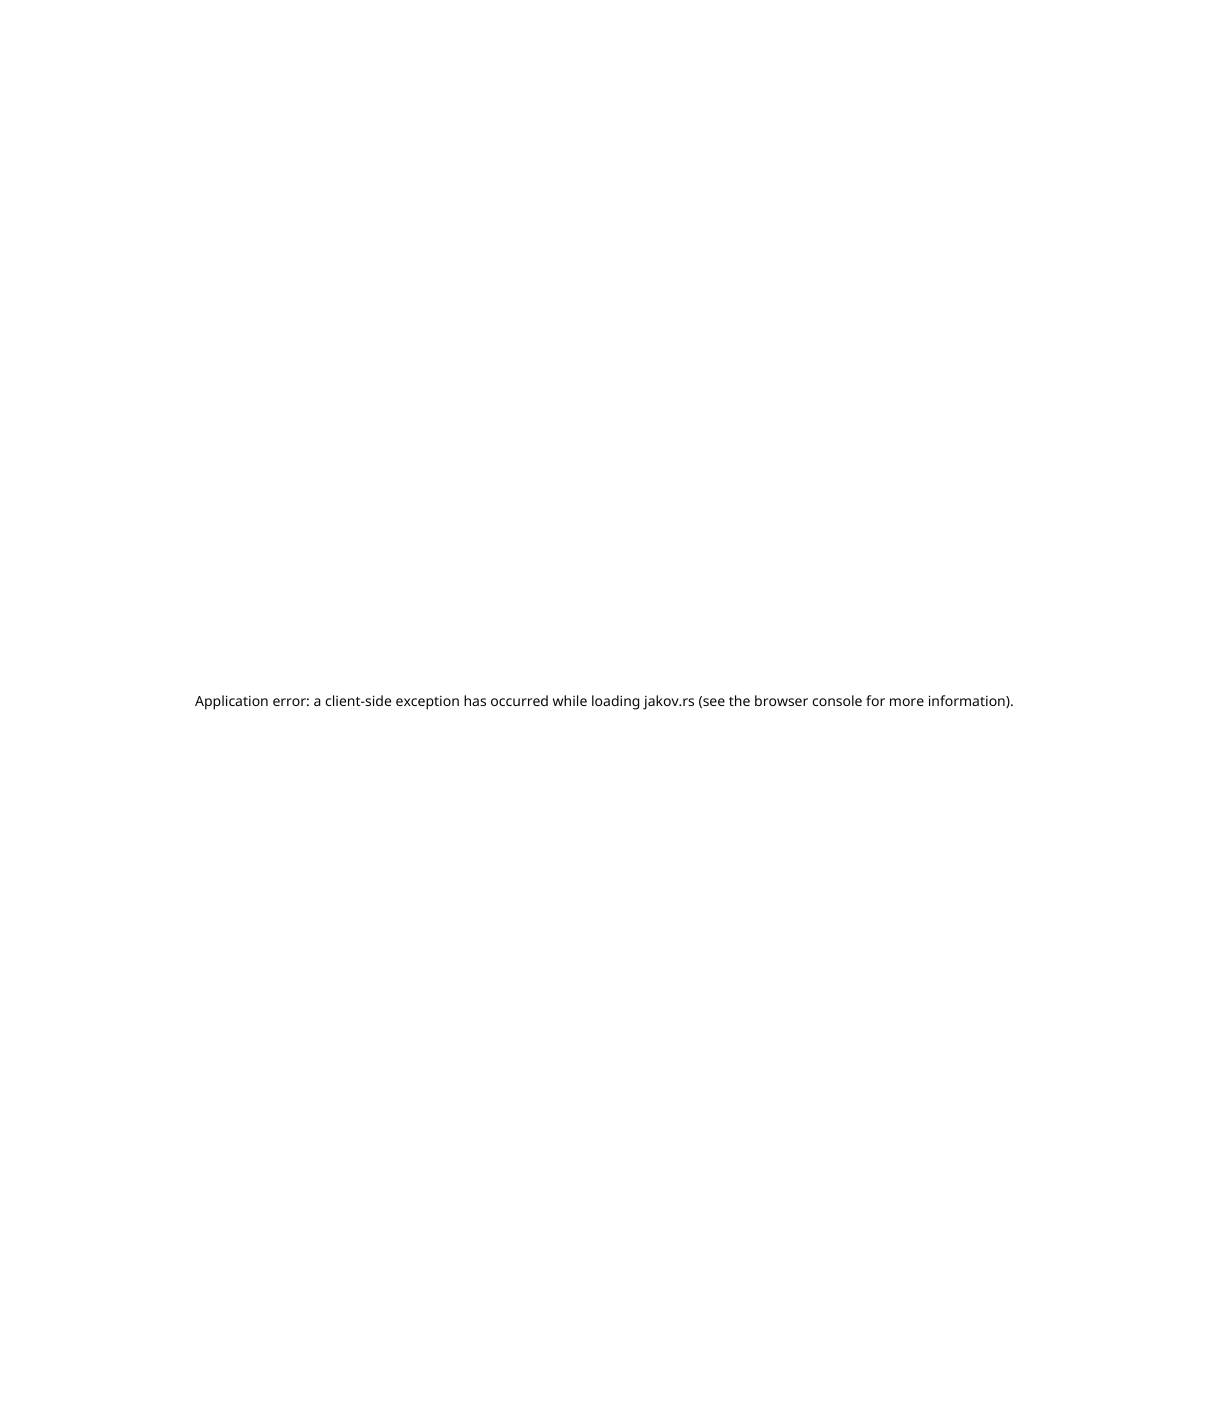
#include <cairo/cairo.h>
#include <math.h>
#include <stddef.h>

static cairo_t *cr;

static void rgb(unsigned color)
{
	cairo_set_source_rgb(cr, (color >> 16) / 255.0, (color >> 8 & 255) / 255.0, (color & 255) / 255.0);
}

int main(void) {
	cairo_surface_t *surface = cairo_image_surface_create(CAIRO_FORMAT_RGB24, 1209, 1401);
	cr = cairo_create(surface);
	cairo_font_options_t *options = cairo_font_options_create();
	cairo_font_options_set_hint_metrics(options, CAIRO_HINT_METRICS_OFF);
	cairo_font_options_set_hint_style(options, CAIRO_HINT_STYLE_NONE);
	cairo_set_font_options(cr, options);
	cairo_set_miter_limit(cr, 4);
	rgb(0xffffff);
	cairo_paint(cr);
	cairo_select_font_face(cr, "Noto Sans", CAIRO_FONT_SLANT_NORMAL, CAIRO_FONT_WEIGHT_NORMAL);
	cairo_set_font_size(cr, 14);
	rgb(0x09090b);
	cairo_move_to(cr, 195, 706);
	cairo_show_text(cr, "Application error: a client-side exception has occurred while loading jakov.rs (see the browser console for more information).");
	cairo_surface_write_to_png(surface, "page.png");
	cairo_font_options_destroy(options);
	cairo_destroy(cr);
	cairo_surface_destroy(surface);
	return 0;
}
